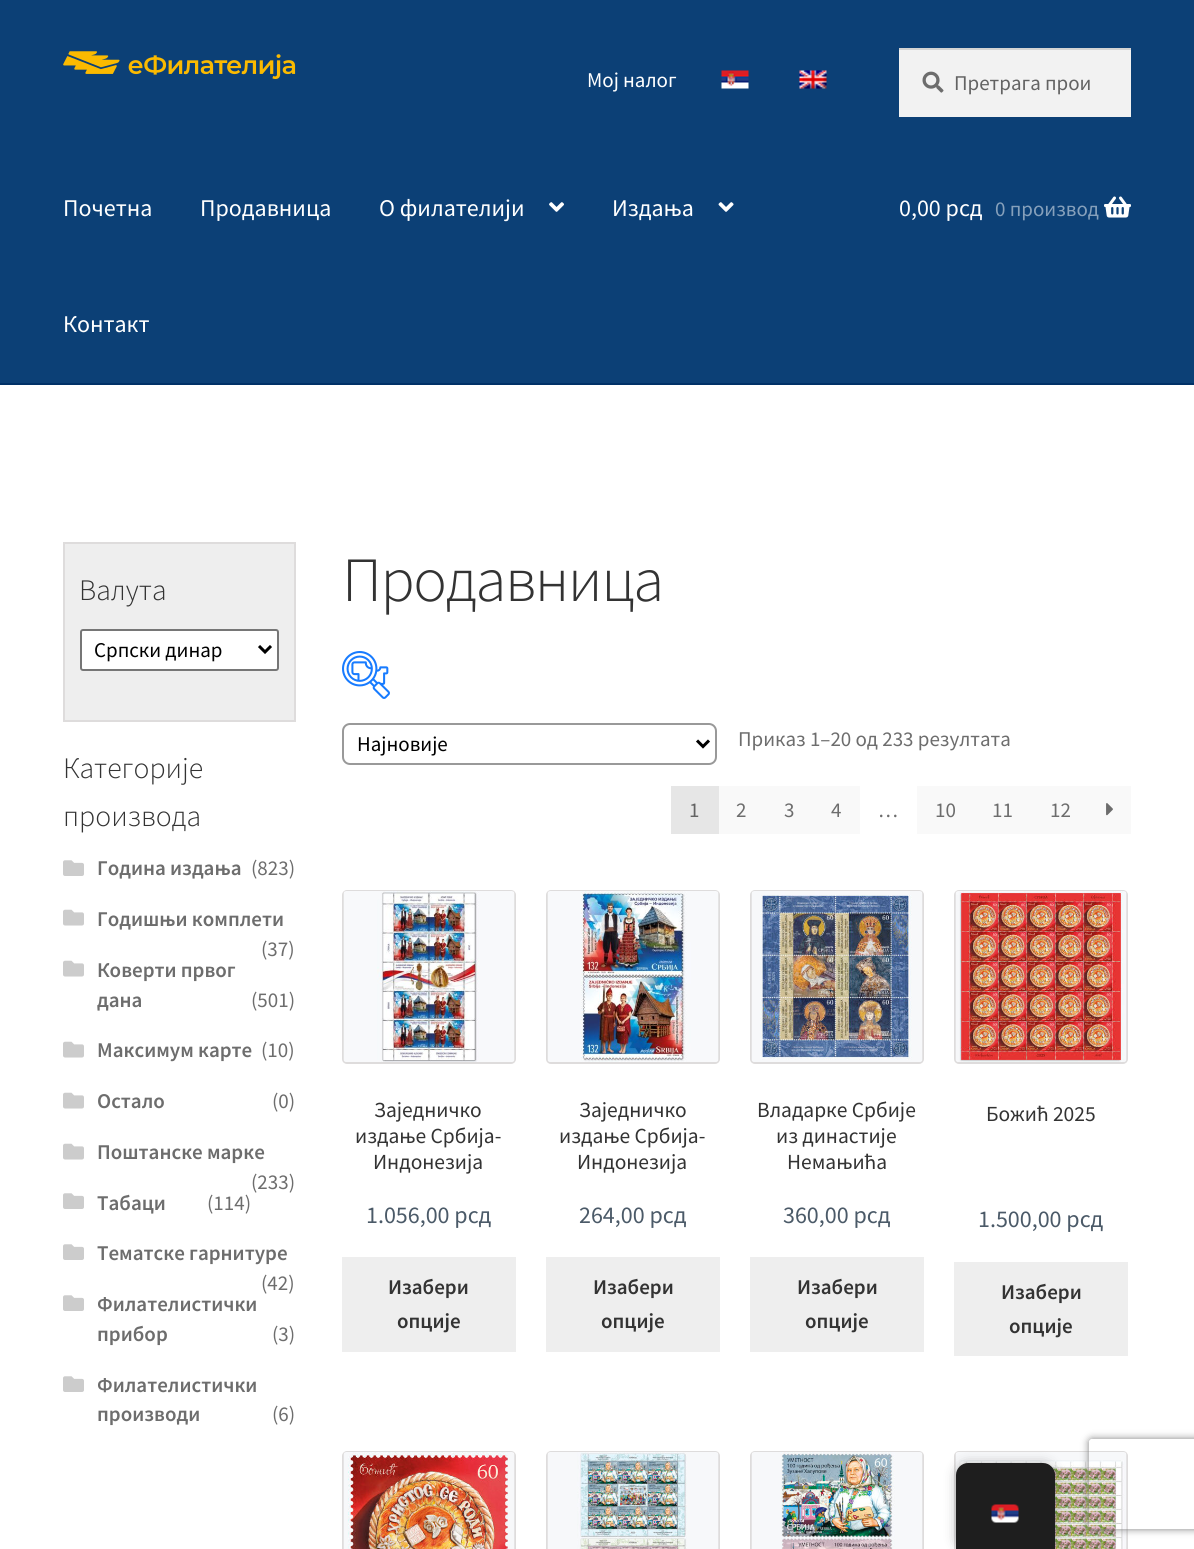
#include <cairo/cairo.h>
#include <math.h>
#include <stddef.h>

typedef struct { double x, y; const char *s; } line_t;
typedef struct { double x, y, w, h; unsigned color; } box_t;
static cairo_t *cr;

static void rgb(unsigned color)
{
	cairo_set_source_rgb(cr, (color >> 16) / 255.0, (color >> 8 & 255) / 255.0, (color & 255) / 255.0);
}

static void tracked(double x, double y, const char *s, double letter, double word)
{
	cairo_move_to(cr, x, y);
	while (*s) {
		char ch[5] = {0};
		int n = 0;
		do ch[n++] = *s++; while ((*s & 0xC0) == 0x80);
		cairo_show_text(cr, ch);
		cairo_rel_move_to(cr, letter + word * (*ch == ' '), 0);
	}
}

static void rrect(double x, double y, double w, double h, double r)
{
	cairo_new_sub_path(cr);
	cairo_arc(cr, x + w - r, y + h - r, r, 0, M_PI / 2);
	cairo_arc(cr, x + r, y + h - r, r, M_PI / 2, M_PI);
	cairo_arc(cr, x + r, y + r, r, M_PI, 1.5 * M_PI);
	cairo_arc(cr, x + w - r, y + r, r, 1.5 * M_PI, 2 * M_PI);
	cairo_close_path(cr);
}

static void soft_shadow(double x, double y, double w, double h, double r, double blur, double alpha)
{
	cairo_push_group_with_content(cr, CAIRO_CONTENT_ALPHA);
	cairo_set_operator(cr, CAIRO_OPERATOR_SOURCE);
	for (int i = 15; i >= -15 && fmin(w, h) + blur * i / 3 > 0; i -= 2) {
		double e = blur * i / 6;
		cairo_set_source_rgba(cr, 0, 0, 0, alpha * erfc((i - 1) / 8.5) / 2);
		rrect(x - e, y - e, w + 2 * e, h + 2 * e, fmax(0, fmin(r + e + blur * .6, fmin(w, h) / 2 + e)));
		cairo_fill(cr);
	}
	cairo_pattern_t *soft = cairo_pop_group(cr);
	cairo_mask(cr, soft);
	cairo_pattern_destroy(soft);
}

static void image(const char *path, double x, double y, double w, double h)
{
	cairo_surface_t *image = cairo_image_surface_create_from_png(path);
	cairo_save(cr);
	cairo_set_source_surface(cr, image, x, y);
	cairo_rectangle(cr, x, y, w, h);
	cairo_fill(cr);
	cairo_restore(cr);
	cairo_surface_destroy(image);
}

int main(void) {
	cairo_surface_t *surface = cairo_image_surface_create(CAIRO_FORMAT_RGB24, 1194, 1549);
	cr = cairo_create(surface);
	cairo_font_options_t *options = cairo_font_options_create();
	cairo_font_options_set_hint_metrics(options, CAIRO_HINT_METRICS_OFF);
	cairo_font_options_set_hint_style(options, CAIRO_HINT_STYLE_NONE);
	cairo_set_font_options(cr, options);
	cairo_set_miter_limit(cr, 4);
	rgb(0xffffff);
	cairo_paint(cr);
	rgb(0x0c4076);
	cairo_rectangle(cr, 0, 0, 1194, 383);
	cairo_fill(cr);
	rgb(0x003167);
	cairo_rectangle(cr, 0, 383, 1194, 2);
	cairo_fill(cr);
	image("img/1.png", 63, 51, 233, 28);
	image("img/2.png", 721, 70, 28, 19);
	image("img/3.png", 799, 70, 28, 19);
	rgb(0xf2f2f2);
	cairo_rectangle(cr, 899, 50, 232, 67);
	cairo_fill(cr);
	image("img/4.png", 922, 71, 22, 22);
	rgb(0xd4d4d4);
	cairo_rectangle(cr, 899, 48, 232, 2);
	cairo_fill(cr);
	image("img/5.png", 549, 202, 15, 10);
	image("img/6.png", 718, 202, 16, 10);
	image("img/7.png", 1104, 196, 27, 22);
	rgb(0xeeeeee);
	cairo_rectangle(cr, 64, 543, 231, 178);
	cairo_fill_preserve(cr);
	rgb(0xdedcdc);
	cairo_stroke(cr);
	rgb(0xffffff);
	rrect(81, 630, 197, 40, 2);
	cairo_fill_preserve(cr);
	rgb(0x767676);
	cairo_stroke(cr);
	cairo_new_path(cr);
	cairo_move_to(cr, 259, 646);
	cairo_line_to(cr, 265, 652);
	cairo_line_to(cr, 271, 646);
	rgb(0x000000);
	cairo_set_line_width(cr, 3);
	cairo_stroke(cr);
	image("img/8.png", 63, 860, 21, 16);
	image("img/9.png", 63, 909, 21, 17);
	image("img/9.png", 63, 960, 21, 17);
	image("img/9.png", 63, 1041, 21, 17);
	image("img/9.png", 63, 1092, 21, 17);
	image("img/9.png", 63, 1143, 21, 17);
	image("img/8.png", 63, 1193, 21, 16);
	image("img/8.png", 63, 1244, 21, 16);
	image("img/8.png", 63, 1295, 21, 16);
	image("img/8.png", 63, 1376, 21, 16);
	image("img/10.png", 342, 651, 48, 48);
	rrect(343, 724, 373, 40, 7);
	rgb(0x999999);
	cairo_set_line_width(cr, 2);
	cairo_stroke(cr);
	cairo_new_path(cr);
	cairo_move_to(cr, 697, 740.5);
	cairo_line_to(cr, 703, 746.5);
	cairo_line_to(cr, 709, 740.5);
	rgb(0x000000);
	cairo_set_line_width(cr, 3);
	cairo_stroke(cr);
	{
		static const box_t items[] = {
			{671, 786, 48, 48, 0xe6e6e6},
			{719, 786, 141, 48, 0xf9f9f9},
			{917, 786, 214, 48, 0xf9f9f9},
		};
		for (size_t i = 0; i < sizeof items / sizeof *items; i++) {
			rgb(items[i].color);
			cairo_rectangle(cr, items[i].x, items[i].y, items[i].w, items[i].h);
			cairo_fill(cr);
		}
	}
	image("img/11.png", 1106, 803, 7, 13);
	rrect(343, 891, 172, 172, 4);
	rgb(0xdedcdc);
	cairo_set_line_width(cr, 2);
	cairo_stroke(cr);
	image("img/12.png", 343, 891, 172, 171);
	rgb(0xeeeeee);
	cairo_rectangle(cr, 342, 1257, 174, 95);
	cairo_fill(cr);
	rrect(547, 891, 172, 172, 4);
	rgb(0xdedcdc);
	cairo_stroke(cr);
	image("img/13.png", 547, 891, 172, 171);
	rgb(0xeeeeee);
	cairo_rectangle(cr, 546, 1257, 174, 95);
	cairo_fill(cr);
	rrect(751, 891, 172, 172, 4);
	rgb(0xdedcdc);
	cairo_stroke(cr);
	image("img/14.png", 751, 891, 172, 171);
	rgb(0xeeeeee);
	cairo_rectangle(cr, 750, 1257, 174, 95);
	cairo_fill(cr);
	rrect(955, 891, 172, 172, 4);
	rgb(0xdedcdc);
	cairo_stroke(cr);
	image("img/15.png", 955, 891, 172, 171);
	rgb(0xeeeeee);
	cairo_rectangle(cr, 954, 1262, 174, 94);
	cairo_fill(cr);
	rrect(343, 1452, 172, 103, 4);
	rgb(0xdedcdc);
	cairo_stroke(cr);
	image("img/16.png", 343, 1452, 172, 97);
	rrect(547, 1452, 172, 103, 4);
	cairo_stroke(cr);
	image("img/17.png", 547, 1452, 172, 97);
	rrect(751, 1452, 172, 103, 4);
	cairo_stroke(cr);
	image("img/18.png", 751, 1452, 172, 97);
	rrect(955, 1452, 172, 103, 4);
	cairo_stroke(cr);
	image("img/19.png", 955, 1452, 172, 97);
	rgb(0x000000);
	soft_shadow(956, 1463, 99, 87, 12, 6, 0.25);
	rgb(0x1e1e1e);
	cairo_new_path(cr);
	cairo_move_to(cr, 968, 1463);
	cairo_line_to(cr, 1043, 1463);
	cairo_curve_to(cr, 1049.5, 1463, 1055, 1468.5, 1055, 1475);
	cairo_line_to(cr, 1055, 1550);
	cairo_line_to(cr, 956, 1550);
	cairo_line_to(cr, 956, 1475);
	cairo_curve_to(cr, 956, 1468.5, 961.5, 1463, 968, 1463);
	cairo_close_path(cr);
	cairo_fill(cr);
	image("img/20.png", 991, 1504, 28, 19);
	cairo_save(cr);
	cairo_set_fill_rule(cr, CAIRO_FILL_RULE_EVEN_ODD);
	cairo_new_path(cr);
	cairo_move_to(cr, 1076, 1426);
	cairo_line_to(cr, 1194, 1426);
	cairo_line_to(cr, 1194, 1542);
	cairo_line_to(cr, 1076, 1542);
	cairo_close_path(cr);
	cairo_move_to(cr, 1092, 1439);
	cairo_line_to(cr, 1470, 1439);
	cairo_curve_to(cr, 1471.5, 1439, 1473, 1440.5, 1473, 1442);
	cairo_line_to(cr, 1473, 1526);
	cairo_curve_to(cr, 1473, 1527.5, 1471.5, 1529, 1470, 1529);
	cairo_line_to(cr, 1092, 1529);
	cairo_curve_to(cr, 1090.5, 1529, 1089, 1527.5, 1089, 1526);
	cairo_line_to(cr, 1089, 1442);
	cairo_curve_to(cr, 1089, 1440.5, 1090.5, 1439, 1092, 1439);
	cairo_close_path(cr);
	cairo_clip(cr);
	rgb(0x808080);
	soft_shadow(1089, 1439, 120, 90, 3, 4, 1);
	cairo_restore(cr);
	cairo_select_font_face(cr, "Source Sans Pro", CAIRO_FONT_SLANT_NORMAL, CAIRO_FONT_WEIGHT_NORMAL);
	cairo_set_font_size(cr, 21);
	rgb(0xffffff);
	cairo_move_to(cr, 587, 87);
	cairo_show_text(cr, "Мој налог");
	rgb(0x636363);
	cairo_move_to(cr, 954, 90);
	cairo_show_text(cr, "Претрага прои");
	cairo_set_font_size(cr, 24);
	rgb(0xffffff);
	{
		static const line_t items[] = {
			{63, 216, "Почетна"},
			{200, 216, "Продавница"},
			{379, 216, "О филателији"},
			{612, 216, "Издања"},
			{63, 332, "Контакт"},
			{899, 216, "0,00 рсд"},
		};
		for (size_t i = 0; i < sizeof items / sizeof *items; i++) {
			cairo_move_to(cr, items[i].x, items[i].y);
			cairo_show_text(cr, items[i].s);
		}
	}
	cairo_set_font_size(cr, 21);
	rgb(0x86a0bb);
	cairo_move_to(cr, 995, 216);
	cairo_show_text(cr, "0 производ");
	cairo_select_font_face(cr, "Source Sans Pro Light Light", CAIRO_FONT_SLANT_NORMAL, CAIRO_FONT_WEIGHT_NORMAL);
	cairo_set_font_size(cr, 29.75);
	rgb(0x333333);
	cairo_move_to(cr, 79, 600);
	cairo_show_text(cr, "Валута");
	cairo_select_font_face(cr, "Source Sans Pro", CAIRO_FONT_SLANT_NORMAL, CAIRO_FONT_WEIGHT_NORMAL);
	cairo_set_font_size(cr, 21);
	rgb(0x000000);
	cairo_move_to(cr, 94, 657);
	cairo_show_text(cr, "Српски динар");
	cairo_select_font_face(cr, "Source Sans Pro Light Light", CAIRO_FONT_SLANT_NORMAL, CAIRO_FONT_WEIGHT_NORMAL);
	cairo_set_font_size(cr, 29.75);
	rgb(0x333333);
	cairo_move_to(cr, 63, 778);
	cairo_show_text(cr, "Категорије");
	cairo_move_to(cr, 63, 826);
	cairo_show_text(cr, "производа");
	cairo_select_font_face(cr, "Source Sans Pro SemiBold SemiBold", CAIRO_FONT_SLANT_NORMAL, CAIRO_FONT_WEIGHT_NORMAL);
	cairo_set_font_size(cr, 21);
	rgb(0x6d6d6d);
	cairo_move_to(cr, 97, 875);
	cairo_show_text(cr, "Година издања");
	cairo_select_font_face(cr, "Source Sans Pro", CAIRO_FONT_SLANT_NORMAL, CAIRO_FONT_WEIGHT_NORMAL);
	cairo_move_to(cr, 251, 875);
	cairo_show_text(cr, "(823)");
	cairo_select_font_face(cr, "Source Sans Pro SemiBold SemiBold", CAIRO_FONT_SLANT_NORMAL, CAIRO_FONT_WEIGHT_NORMAL);
	cairo_move_to(cr, 97, 926);
	cairo_show_text(cr, "Годишњи комплети");
	cairo_select_font_face(cr, "Source Sans Pro", CAIRO_FONT_SLANT_NORMAL, CAIRO_FONT_WEIGHT_NORMAL);
	cairo_move_to(cr, 261, 956);
	cairo_show_text(cr, "(37)");
	cairo_select_font_face(cr, "Source Sans Pro SemiBold SemiBold", CAIRO_FONT_SLANT_NORMAL, CAIRO_FONT_WEIGHT_NORMAL);
	cairo_move_to(cr, 97, 977);
	cairo_show_text(cr, "Коверти првог");
	cairo_move_to(cr, 97, 1007);
	cairo_show_text(cr, "дана");
	cairo_select_font_face(cr, "Source Sans Pro", CAIRO_FONT_SLANT_NORMAL, CAIRO_FONT_WEIGHT_NORMAL);
	cairo_move_to(cr, 251, 1007);
	cairo_show_text(cr, "(501)");
	cairo_select_font_face(cr, "Source Sans Pro SemiBold SemiBold", CAIRO_FONT_SLANT_NORMAL, CAIRO_FONT_WEIGHT_NORMAL);
	cairo_move_to(cr, 97, 1057);
	cairo_show_text(cr, "Максимум карте");
	cairo_select_font_face(cr, "Source Sans Pro", CAIRO_FONT_SLANT_NORMAL, CAIRO_FONT_WEIGHT_NORMAL);
	cairo_move_to(cr, 261, 1057);
	cairo_show_text(cr, "(10)");
	cairo_select_font_face(cr, "Source Sans Pro SemiBold SemiBold", CAIRO_FONT_SLANT_NORMAL, CAIRO_FONT_WEIGHT_NORMAL);
	cairo_move_to(cr, 97, 1108);
	cairo_show_text(cr, "Остало");
	cairo_select_font_face(cr, "Source Sans Pro", CAIRO_FONT_SLANT_NORMAL, CAIRO_FONT_WEIGHT_NORMAL);
	cairo_move_to(cr, 272, 1108);
	cairo_show_text(cr, "(0)");
	cairo_select_font_face(cr, "Source Sans Pro SemiBold SemiBold", CAIRO_FONT_SLANT_NORMAL, CAIRO_FONT_WEIGHT_NORMAL);
	cairo_move_to(cr, 97, 1159);
	cairo_show_text(cr, "Поштанске марке");
	cairo_select_font_face(cr, "Source Sans Pro", CAIRO_FONT_SLANT_NORMAL, CAIRO_FONT_WEIGHT_NORMAL);
	cairo_move_to(cr, 251, 1189);
	cairo_show_text(cr, "(233)");
	cairo_select_font_face(cr, "Source Sans Pro SemiBold SemiBold", CAIRO_FONT_SLANT_NORMAL, CAIRO_FONT_WEIGHT_NORMAL);
	cairo_move_to(cr, 97, 1210);
	cairo_show_text(cr, "Табаци");
	cairo_select_font_face(cr, "Source Sans Pro", CAIRO_FONT_SLANT_NORMAL, CAIRO_FONT_WEIGHT_NORMAL);
	cairo_move_to(cr, 207, 1210);
	cairo_show_text(cr, "(114)");
	cairo_select_font_face(cr, "Source Sans Pro SemiBold SemiBold", CAIRO_FONT_SLANT_NORMAL, CAIRO_FONT_WEIGHT_NORMAL);
	cairo_move_to(cr, 97, 1260);
	cairo_show_text(cr, "Тематске гарнитуре");
	cairo_select_font_face(cr, "Source Sans Pro", CAIRO_FONT_SLANT_NORMAL, CAIRO_FONT_WEIGHT_NORMAL);
	cairo_move_to(cr, 261, 1290);
	cairo_show_text(cr, "(42)");
	cairo_select_font_face(cr, "Source Sans Pro SemiBold SemiBold", CAIRO_FONT_SLANT_NORMAL, CAIRO_FONT_WEIGHT_NORMAL);
	cairo_move_to(cr, 97, 1311);
	cairo_show_text(cr, "Филателистички");
	cairo_move_to(cr, 97, 1341);
	cairo_show_text(cr, "прибор");
	cairo_select_font_face(cr, "Source Sans Pro", CAIRO_FONT_SLANT_NORMAL, CAIRO_FONT_WEIGHT_NORMAL);
	cairo_move_to(cr, 272, 1341);
	cairo_show_text(cr, "(3)");
	cairo_select_font_face(cr, "Source Sans Pro SemiBold SemiBold", CAIRO_FONT_SLANT_NORMAL, CAIRO_FONT_WEIGHT_NORMAL);
	cairo_move_to(cr, 97, 1392);
	cairo_show_text(cr, "Филателистички");
	cairo_move_to(cr, 97, 1421);
	cairo_show_text(cr, "производи");
	cairo_select_font_face(cr, "Source Sans Pro", CAIRO_FONT_SLANT_NORMAL, CAIRO_FONT_WEIGHT_NORMAL);
	cairo_move_to(cr, 272, 1421);
	cairo_show_text(cr, "(6)");
	cairo_select_font_face(cr, "Source Sans Pro Light Light", CAIRO_FONT_SLANT_NORMAL, CAIRO_FONT_WEIGHT_NORMAL);
	cairo_set_font_size(cr, 63);
	rgb(0x333333);
	tracked(342, 601, "Продавница", -1.5, 0);
	cairo_select_font_face(cr, "Source Sans Pro", CAIRO_FONT_SLANT_NORMAL, CAIRO_FONT_WEIGHT_NORMAL);
	cairo_set_font_size(cr, 21);
	rgb(0x000000);
	cairo_move_to(cr, 357, 751);
	cairo_show_text(cr, "Најновије");
	rgb(0x6d6d6d);
	cairo_move_to(cr, 738, 746);
	cairo_show_text(cr, "Приказ 1–20 од 233 резултата");
	rgb(0x636363);
	cairo_move_to(cr, 689, 817);
	cairo_show_text(cr, "1");
	rgb(0x6d6d6d);
	{
		static const line_t items[] = {
			{736, 817, "2"},
			{784, 817, "3"},
			{831, 817, "4"},
			{878, 817, "…"},
			{935, 817, "10"},
			{992, 817, "11"},
			{1050, 817, "12"},
		};
		for (size_t i = 0; i < sizeof items / sizeof *items; i++) {
			cairo_move_to(cr, items[i].x, items[i].y);
			cairo_show_text(cr, items[i].s);
		}
	}
	cairo_set_font_size(cr, 21.5);
	rgb(0x333333);
	{
		static const line_t items[] = {
			{374, 1117, "Заједничко"},
			{355, 1143, "издање Србија-"},
			{373, 1169, "Индонезија"},
		};
		for (size_t i = 0; i < sizeof items / sizeof *items; i++) {
			cairo_move_to(cr, items[i].x, items[i].y);
			cairo_show_text(cr, items[i].s);
		}
	}
	cairo_set_font_size(cr, 24);
	rgb(0x4b5a68);
	cairo_move_to(cr, 366, 1223);
	cairo_show_text(cr, "1.056,00 рсд");
	cairo_select_font_face(cr, "Source Sans Pro SemiBold SemiBold", CAIRO_FONT_SLANT_NORMAL, CAIRO_FONT_WEIGHT_NORMAL);
	cairo_set_font_size(cr, 21);
	rgb(0x333333);
	cairo_move_to(cr, 388, 1294);
	cairo_show_text(cr, "Изабери");
	cairo_move_to(cr, 397, 1328);
	cairo_show_text(cr, "опције");
	cairo_select_font_face(cr, "Source Sans Pro", CAIRO_FONT_SLANT_NORMAL, CAIRO_FONT_WEIGHT_NORMAL);
	cairo_set_font_size(cr, 21.5);
	{
		static const line_t items[] = {
			{579, 1117, "Заједничко"},
			{559, 1143, "издање Србија-"},
			{577, 1169, "Индонезија"},
		};
		for (size_t i = 0; i < sizeof items / sizeof *items; i++) {
			cairo_move_to(cr, items[i].x, items[i].y);
			cairo_show_text(cr, items[i].s);
		}
	}
	cairo_set_font_size(cr, 24);
	rgb(0x4b5a68);
	cairo_move_to(cr, 579, 1223);
	cairo_show_text(cr, "264,00 рсд");
	cairo_select_font_face(cr, "Source Sans Pro SemiBold SemiBold", CAIRO_FONT_SLANT_NORMAL, CAIRO_FONT_WEIGHT_NORMAL);
	cairo_set_font_size(cr, 21);
	rgb(0x333333);
	cairo_move_to(cr, 593, 1294);
	cairo_show_text(cr, "Изабери");
	cairo_move_to(cr, 601, 1328);
	cairo_show_text(cr, "опције");
	cairo_select_font_face(cr, "Source Sans Pro", CAIRO_FONT_SLANT_NORMAL, CAIRO_FONT_WEIGHT_NORMAL);
	cairo_set_font_size(cr, 21.5);
	{
		static const line_t items[] = {
			{757, 1117, "Владарке Србије"},
			{776, 1143, "из династије"},
			{787, 1169, "Немањића"},
		};
		for (size_t i = 0; i < sizeof items / sizeof *items; i++) {
			cairo_move_to(cr, items[i].x, items[i].y);
			cairo_show_text(cr, items[i].s);
		}
	}
	cairo_set_font_size(cr, 24);
	rgb(0x4b5a68);
	cairo_move_to(cr, 783, 1223);
	cairo_show_text(cr, "360,00 рсд");
	cairo_select_font_face(cr, "Source Sans Pro SemiBold SemiBold", CAIRO_FONT_SLANT_NORMAL, CAIRO_FONT_WEIGHT_NORMAL);
	cairo_set_font_size(cr, 21);
	rgb(0x333333);
	cairo_move_to(cr, 797, 1294);
	cairo_show_text(cr, "Изабери");
	cairo_move_to(cr, 805, 1328);
	cairo_show_text(cr, "опције");
	cairo_select_font_face(cr, "Source Sans Pro", CAIRO_FONT_SLANT_NORMAL, CAIRO_FONT_WEIGHT_NORMAL);
	cairo_set_font_size(cr, 21.5);
	cairo_move_to(cr, 986, 1121);
	cairo_show_text(cr, "Божић 2025");
	cairo_set_font_size(cr, 24);
	rgb(0x4b5a68);
	cairo_move_to(cr, 978, 1227);
	cairo_show_text(cr, "1.500,00 рсд");
	cairo_select_font_face(cr, "Source Sans Pro SemiBold SemiBold", CAIRO_FONT_SLANT_NORMAL, CAIRO_FONT_WEIGHT_NORMAL);
	cairo_set_font_size(cr, 21);
	rgb(0x333333);
	cairo_move_to(cr, 1001, 1299);
	cairo_show_text(cr, "Изабери");
	cairo_move_to(cr, 1009, 1333);
	cairo_show_text(cr, "опције");
	cairo_surface_write_to_png(surface, "page.png");
	cairo_font_options_destroy(options);
	cairo_destroy(cr);
	cairo_surface_destroy(surface);
	return 0;
}
